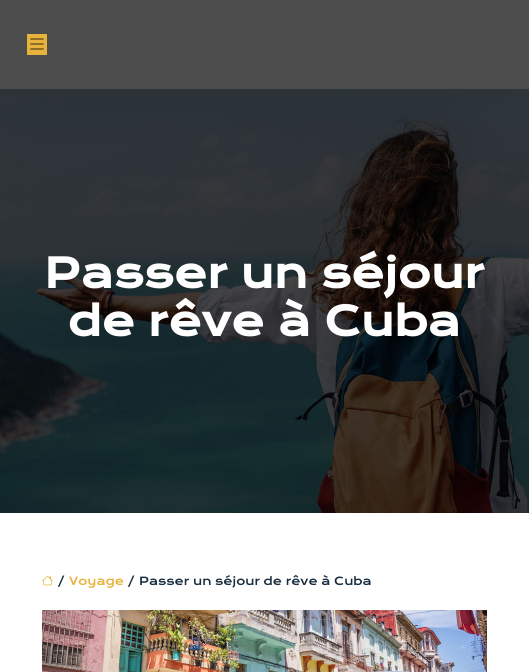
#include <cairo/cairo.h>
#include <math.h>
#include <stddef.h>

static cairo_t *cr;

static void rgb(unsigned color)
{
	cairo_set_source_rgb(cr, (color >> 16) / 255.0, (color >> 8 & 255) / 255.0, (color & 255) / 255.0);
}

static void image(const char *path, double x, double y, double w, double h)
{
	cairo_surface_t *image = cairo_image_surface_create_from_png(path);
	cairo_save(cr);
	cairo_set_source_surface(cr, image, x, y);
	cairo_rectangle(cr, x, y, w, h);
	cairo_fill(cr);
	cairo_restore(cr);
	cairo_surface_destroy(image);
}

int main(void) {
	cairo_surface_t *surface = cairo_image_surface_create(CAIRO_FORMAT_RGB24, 529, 672);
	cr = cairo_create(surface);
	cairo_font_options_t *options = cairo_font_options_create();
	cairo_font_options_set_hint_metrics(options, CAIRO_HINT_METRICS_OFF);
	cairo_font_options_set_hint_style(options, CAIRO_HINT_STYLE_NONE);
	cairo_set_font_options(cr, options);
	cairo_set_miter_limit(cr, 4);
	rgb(0xffffff);
	cairo_paint(cr);
	rgb(0x4d4d4d);
	cairo_rectangle(cr, 0, 0, 529, 89);
	cairo_fill(cr);
	rgb(0xe8b33d);
	cairo_rectangle(cr, 27, 34, 20, 21);
	cairo_fill(cr);
	image("img/1.png", 30, 38, 14, 12);
	image("img/2.png", 0, 89, 529, 424);
	image("img/3.png", 42, 575, 11, 11);
	image("img/4.png", 42, 610, 445, 62);
	cairo_select_font_face(cr, "Krona One", CAIRO_FONT_SLANT_NORMAL, CAIRO_FONT_WEIGHT_BOLD);
	cairo_set_font_size(cr, 40);
	rgb(0xffffff);
	cairo_move_to(cr, 44, 288);
	cairo_show_text(cr, "Passer un séjour");
	cairo_move_to(cr, 68, 336);
	cairo_show_text(cr, "de rêve à Cuba");
	cairo_select_font_face(cr, "Krona One", CAIRO_FONT_SLANT_NORMAL, CAIRO_FONT_WEIGHT_NORMAL);
	cairo_set_font_size(cr, 11);
	rgb(0x1a2e40);
	cairo_move_to(cr, 57, 585);
	cairo_show_text(cr, "/");
	rgb(0xe8b33d);
	cairo_move_to(cr, 69, 585);
	cairo_show_text(cr, "Voyage");
	rgb(0x1a2e40);
	cairo_move_to(cr, 127, 585);
	cairo_show_text(cr, "/ Passer un séjour de rêve à Cuba");
	cairo_surface_write_to_png(surface, "page.png");
	cairo_font_options_destroy(options);
	cairo_destroy(cr);
	cairo_surface_destroy(surface);
	return 0;
}
